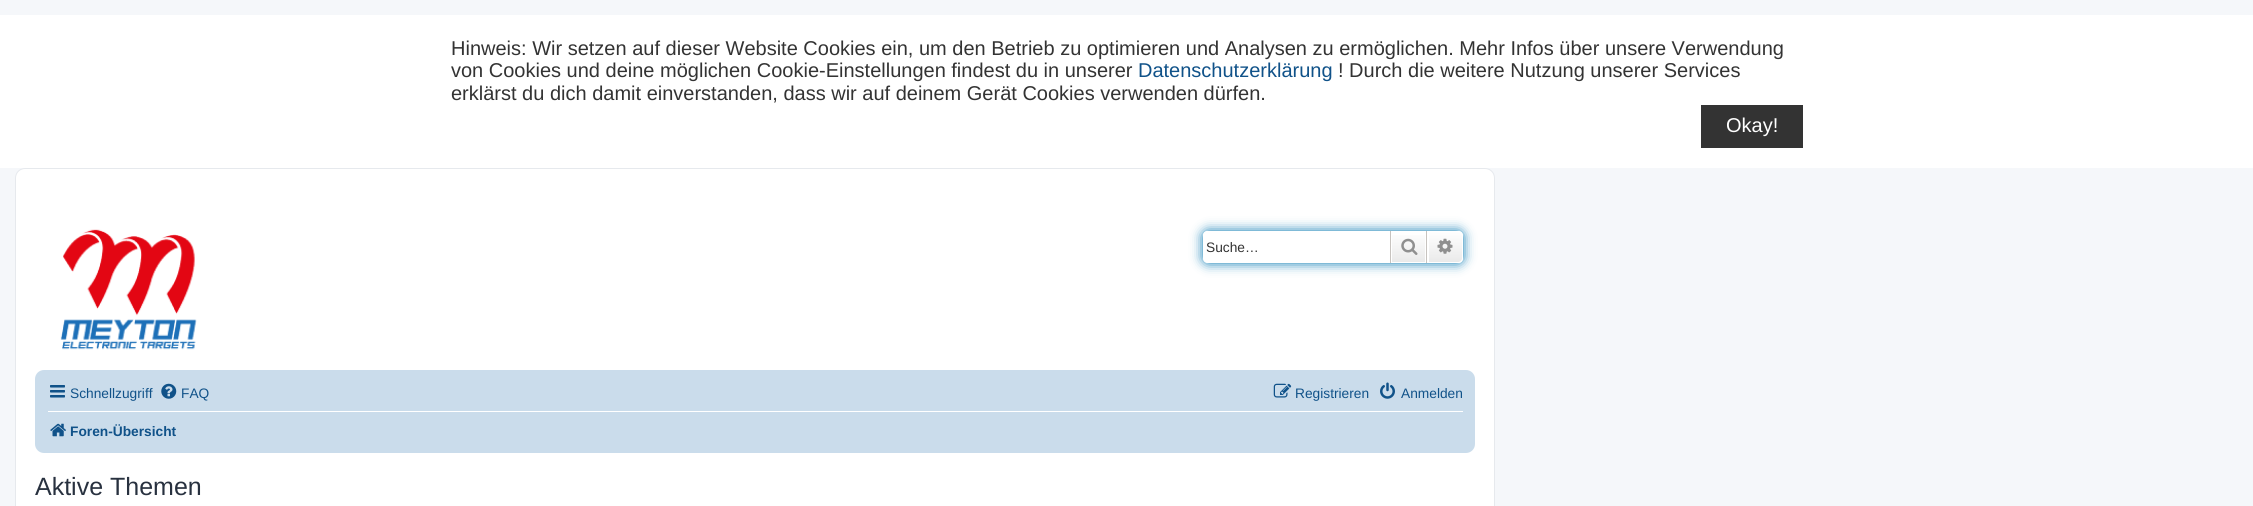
#include <cairo/cairo.h>
#include <math.h>
#include <stddef.h>

typedef struct { double x, y; const char *s; } line_t;
static cairo_t *cr;

static void rgb(unsigned color)
{
	cairo_set_source_rgb(cr, (color >> 16) / 255.0, (color >> 8 & 255) / 255.0, (color & 255) / 255.0);
}

static void rrect(double x, double y, double w, double h, double r)
{
	cairo_new_sub_path(cr);
	cairo_arc(cr, x + w - r, y + h - r, r, 0, M_PI / 2);
	cairo_arc(cr, x + r, y + h - r, r, M_PI / 2, M_PI);
	cairo_arc(cr, x + r, y + r, r, M_PI, 1.5 * M_PI);
	cairo_arc(cr, x + w - r, y + r, r, 1.5 * M_PI, 2 * M_PI);
	cairo_close_path(cr);
}

static void soft_shadow(double x, double y, double w, double h, double r, double blur, double alpha)
{
	cairo_push_group_with_content(cr, CAIRO_CONTENT_ALPHA);
	cairo_set_operator(cr, CAIRO_OPERATOR_SOURCE);
	for (int i = 15; i >= -15 && fmin(w, h) + blur * i / 3 > 0; i -= 2) {
		double e = blur * i / 6;
		cairo_set_source_rgba(cr, 0, 0, 0, alpha * erfc((i - 1) / 8.5) / 2);
		rrect(x - e, y - e, w + 2 * e, h + 2 * e, fmax(0, fmin(r + e + blur * .6, fmin(w, h) / 2 + e)));
		cairo_fill(cr);
	}
	cairo_pattern_t *soft = cairo_pop_group(cr);
	cairo_mask(cr, soft);
	cairo_pattern_destroy(soft);
}

static void image(const char *path, double x, double y, double w, double h)
{
	cairo_surface_t *image = cairo_image_surface_create_from_png(path);
	cairo_save(cr);
	cairo_set_source_surface(cr, image, x, y);
	cairo_rectangle(cr, x, y, w, h);
	cairo_fill(cr);
	cairo_restore(cr);
	cairo_surface_destroy(image);
}

int main(void) {
	cairo_surface_t *surface = cairo_image_surface_create(CAIRO_FORMAT_RGB24, 2253, 506);
	cr = cairo_create(surface);
	cairo_font_options_t *options = cairo_font_options_create();
	cairo_font_options_set_hint_metrics(options, CAIRO_HINT_METRICS_OFF);
	cairo_font_options_set_hint_style(options, CAIRO_HINT_STYLE_NONE);
	cairo_set_font_options(cr, options);
	cairo_set_miter_limit(cr, 4);
	cairo_pattern_t *gradient;
	rgb(0xf5f7fa);
	cairo_paint(cr);
	rgb(0xffffff);
	cairo_rectangle(cr, 0, 15, 2253, 153);
	cairo_fill(cr);
	rgb(0x333333);
	cairo_rectangle(cr, 1701, 105, 102, 43);
	cairo_fill(cr);
	rgb(0xffffff);
	rrect(15.5, 168.5, 1479, 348, 9.5);
	cairo_fill_preserve(cr);
	rgb(0xe6e9ed);
	cairo_set_line_width(cr, 1);
	cairo_stroke(cr);
	image("img/1.png", 60, 229, 137, 121);
	cairo_save(cr);
	cairo_set_fill_rule(cr, CAIRO_FILL_RULE_EVEN_ODD);
	cairo_new_path(cr);
	cairo_move_to(cr, 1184, 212);
	cairo_line_to(cr, 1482, 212);
	cairo_line_to(cr, 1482, 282);
	cairo_line_to(cr, 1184, 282);
	cairo_close_path(cr);
	cairo_move_to(cr, 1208, 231);
	cairo_line_to(cr, 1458, 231);
	cairo_curve_to(cr, 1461, 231, 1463, 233, 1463, 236);
	cairo_line_to(cr, 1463, 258);
	cairo_curve_to(cr, 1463, 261, 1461, 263, 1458, 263);
	cairo_line_to(cr, 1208, 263);
	cairo_curve_to(cr, 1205, 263, 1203, 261, 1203, 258);
	cairo_line_to(cr, 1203, 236);
	cairo_curve_to(cr, 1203, 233, 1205, 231, 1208, 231);
	cairo_close_path(cr);
	cairo_clip(cr);
	rgb(0x0075b0);
	soft_shadow(1203, 231, 260, 32, 5, 6, 1);
	cairo_restore(cr);
	rgb(0xffffff);
	cairo_new_path(cr);
	cairo_move_to(cr, 1208, 231);
	cairo_line_to(cr, 1390, 231);
	cairo_line_to(cr, 1390, 261);
	cairo_line_to(cr, 1208, 261);
	cairo_curve_to(cr, 1205, 261, 1203, 259, 1203, 256);
	cairo_line_to(cr, 1203, 236);
	cairo_curve_to(cr, 1203, 233, 1205, 231, 1208, 231);
	cairo_close_path(cr);
	cairo_fill(cr);
	gradient = cairo_pattern_create_linear(1409, 231, 1409, 263);
	cairo_pattern_add_color_stop_rgba(gradient, 0, 1, 1, 1, 1);
	cairo_pattern_add_color_stop_rgba(gradient, 1, 0.914, 0.914, 0.914, 1);
	cairo_set_source(cr, gradient);
	cairo_pattern_destroy(gradient);
	cairo_rectangle(cr, 1392, 235, 33, 27);
	cairo_fill(cr);
	cairo_rectangle(cr, 1391.5, 231.5, 34, 31);
	rgb(0xffffff);
	cairo_stroke(cr);
	rgb(0xc7c3bf);
	cairo_rectangle(cr, 1426, 231, 1, 32);
	cairo_fill(cr);
	cairo_rectangle(cr, 1390, 231, 1, 32);
	cairo_fill(cr);
	image("img/2.png", 1401, 238, 17, 17);
	gradient = cairo_pattern_create_linear(1445, 231, 1445, 263);
	cairo_pattern_add_color_stop_rgba(gradient, 0, 1, 1, 1, 1);
	cairo_pattern_add_color_stop_rgba(gradient, 1, 0.914, 0.914, 0.914, 1);
	cairo_set_source(cr, gradient);
	cairo_pattern_destroy(gradient);
	cairo_new_path(cr);
	cairo_move_to(cr, 1428.5, 231.5);
	cairo_line_to(cr, 1458, 231.5);
	cairo_curve_to(cr, 1460.5, 231.5, 1462.5, 233.5, 1462.5, 236);
	cairo_line_to(cr, 1462.5, 258);
	cairo_curve_to(cr, 1462.5, 260.5, 1460.5, 262.5, 1458, 262.5);
	cairo_line_to(cr, 1428.5, 262.5);
	cairo_close_path(cr);
	cairo_fill_preserve(cr);
	rgb(0xffffff);
	cairo_stroke(cr);
	image("img/3.png", 1437, 238, 16, 16);
	rgb(0xcadceb);
	rrect(35, 370, 1440, 83, 9);
	cairo_fill(cr);
	image("img/4.png", 50, 385, 15, 13);
	image("img/5.png", 161, 383, 16, 16);
	image("img/6.png", 1273, 383, 19, 15);
	image("img/7.png", 1380, 382, 15, 17);
	rgb(0xffffff);
	cairo_rectangle(cr, 48, 411, 1415, 1);
	cairo_fill(cr);
	image("img/8.png", 50, 423, 16, 14);
	cairo_select_font_face(cr, "Liberation Sans", CAIRO_FONT_SLANT_NORMAL, CAIRO_FONT_WEIGHT_NORMAL);
	cairo_set_font_size(cr, 20);
	rgb(0x333333);
	cairo_move_to(cr, 451, 55);
	cairo_show_text(cr, "Hinweis: Wir setzen auf dieser Website Cookies ein, um den Betrieb zu optimieren und Analysen zu ermöglichen. Mehr Infos über unsere Verwendung");
	cairo_move_to(cr, 451, 77);
	cairo_show_text(cr, "von Cookies und deine möglichen Cookie-Einstellungen findest du in unserer");
	rgb(0x105289);
	cairo_move_to(cr, 1138, 77);
	cairo_show_text(cr, "Datenschutzerklärung");
	rgb(0x333333);
	cairo_move_to(cr, 1338, 77);
	cairo_show_text(cr, "! Durch die weitere Nutzung unserer Services");
	cairo_move_to(cr, 451, 100);
	cairo_show_text(cr, "erklärst du dich damit einverstanden, dass wir auf deinem Gerät Cookies verwenden dürfen.");
	rgb(0xffffff);
	cairo_move_to(cr, 1726, 132);
	cairo_show_text(cr, "Okay!");
	cairo_set_font_size(cr, 13.75);
	rgb(0x333333);
	cairo_move_to(cr, 1206, 252);
	cairo_show_text(cr, "Suche…");
	rgb(0x105289);
	{
		static const line_t items[] = {
			{70, 398, "Schnellzugriff"},
			{181, 398, "FAQ"},
			{1295, 398, "Registrieren"},
			{1401, 398, "Anmelden"},
		};
		for (size_t i = 0; i < sizeof items / sizeof *items; i++) {
			cairo_move_to(cr, items[i].x, items[i].y);
			cairo_show_text(cr, items[i].s);
		}
	}
	cairo_select_font_face(cr, "Liberation Sans", CAIRO_FONT_SLANT_NORMAL, CAIRO_FONT_WEIGHT_BOLD);
	cairo_move_to(cr, 70, 436);
	cairo_show_text(cr, "Foren-Übersicht");
	cairo_select_font_face(cr, "Liberation Sans", CAIRO_FONT_SLANT_NORMAL, CAIRO_FONT_WEIGHT_NORMAL);
	cairo_set_font_size(cr, 25);
	rgb(0x28313f);
	cairo_move_to(cr, 35, 495);
	cairo_show_text(cr, "Aktive Themen");
	cairo_surface_write_to_png(surface, "page.png");
	cairo_font_options_destroy(options);
	cairo_destroy(cr);
	cairo_surface_destroy(surface);
	return 0;
}
